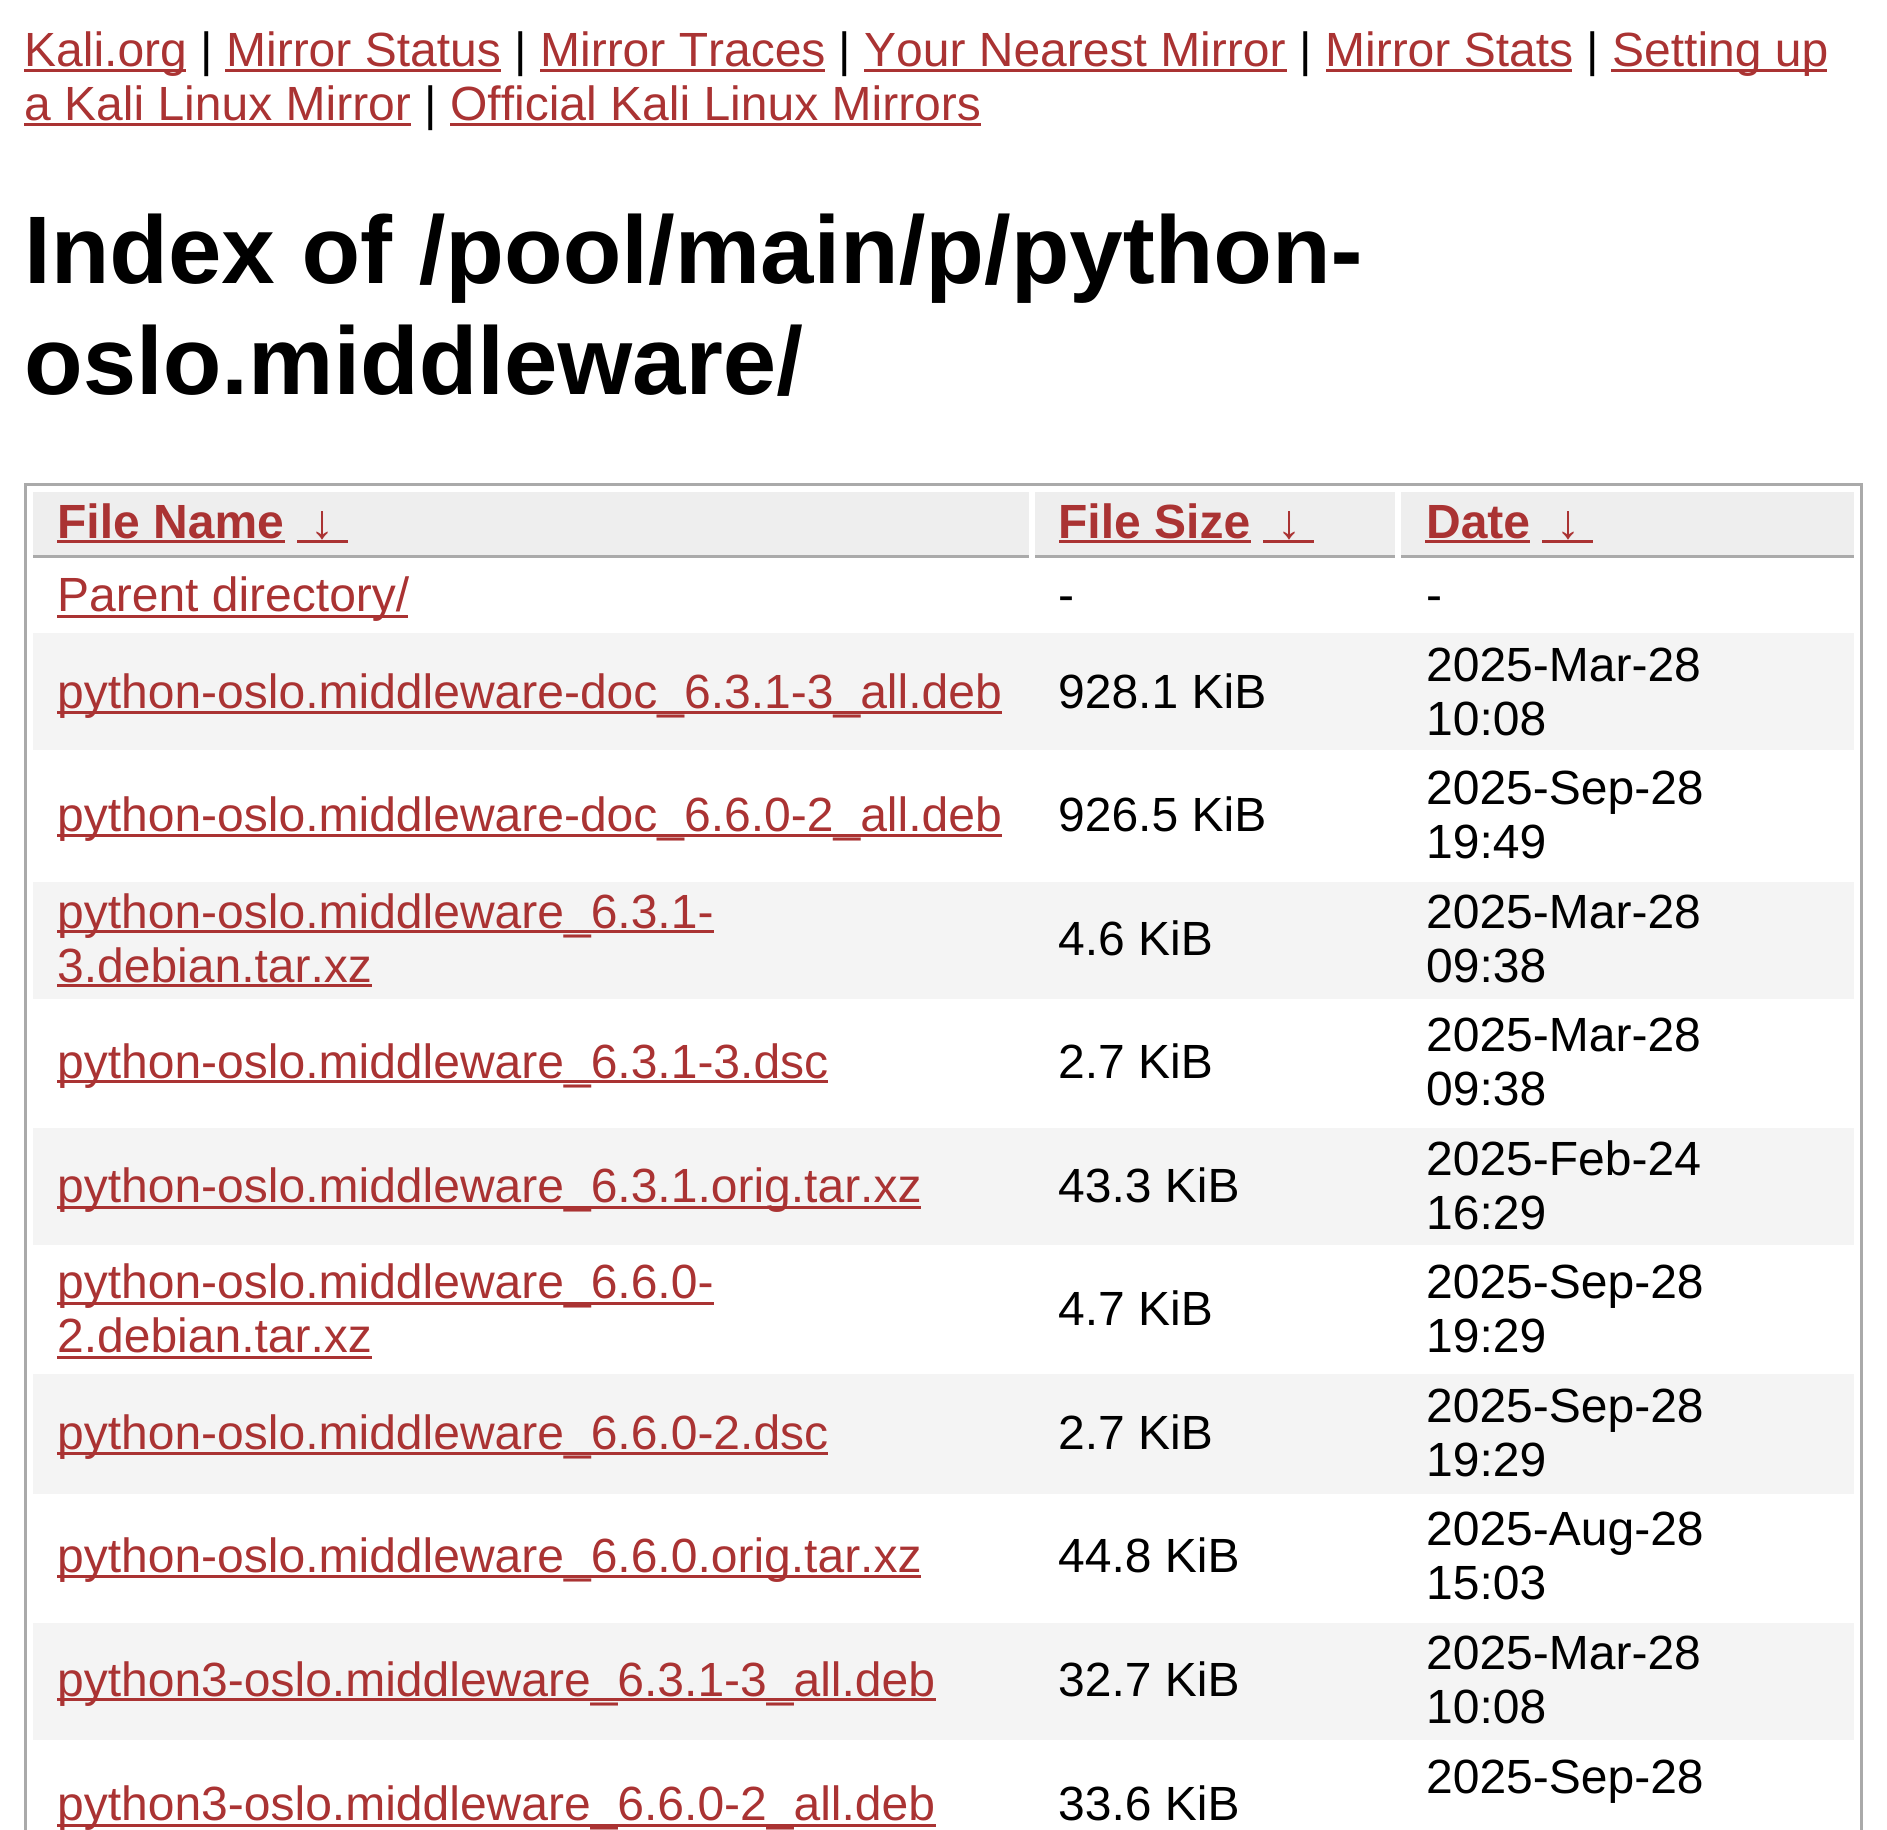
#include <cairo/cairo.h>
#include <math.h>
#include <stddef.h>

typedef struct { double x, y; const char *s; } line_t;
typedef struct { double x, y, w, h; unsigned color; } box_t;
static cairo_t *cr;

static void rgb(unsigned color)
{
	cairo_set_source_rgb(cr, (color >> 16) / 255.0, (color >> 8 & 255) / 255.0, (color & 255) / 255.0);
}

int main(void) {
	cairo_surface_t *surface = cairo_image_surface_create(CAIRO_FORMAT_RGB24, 1887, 1830);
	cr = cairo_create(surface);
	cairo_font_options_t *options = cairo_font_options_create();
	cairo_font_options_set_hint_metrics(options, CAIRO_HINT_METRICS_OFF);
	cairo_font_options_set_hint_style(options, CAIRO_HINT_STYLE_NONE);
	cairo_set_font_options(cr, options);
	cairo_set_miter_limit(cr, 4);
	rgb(0xffffff);
	cairo_paint(cr);
	{
		static const box_t items[] = {
			{24, 69, 162, 3, 0xaa3333},
			{225, 69, 276, 3, 0xaa3333},
			{540, 69, 285, 3, 0xaa3333},
			{864, 69, 423, 3, 0xaa3333},
			{1326, 69, 246, 3, 0xaa3333},
			{1611, 69, 216, 3, 0xaa3333},
			{24, 123, 387, 3, 0xaa3333},
			{450, 123, 531, 3, 0xaa3333},
		};
		for (size_t i = 0; i < sizeof items / sizeof *items; i++) {
			rgb(items[i].color);
			cairo_rectangle(cr, items[i].x, items[i].y, items[i].w, items[i].h);
			cairo_fill(cr);
		}
	}
	cairo_rectangle(cr, 25.5, 484.5, 1836, 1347);
	rgb(0xaaaaaa);
	cairo_set_line_width(cr, 3);
	cairo_stroke(cr);
	{
		static const box_t items[] = {
			{33, 492, 996, 63, 0xeeeeee},
			{33, 555, 996, 3, 0xaaaaaa},
			{57, 540, 228, 3, 0xaa3333},
			{297, 540, 51, 3, 0xaa3333},
			{1035, 492, 360, 63, 0xeeeeee},
			{1035, 555, 360, 3, 0xaaaaaa},
			{1059, 540, 192, 3, 0xaa3333},
			{1263, 540, 51, 3, 0xaa3333},
			{1401, 492, 453, 63, 0xeeeeee},
			{1401, 555, 453, 3, 0xaaaaaa},
			{1425, 540, 105, 3, 0xaa3333},
			{1542, 540, 51, 3, 0xaa3333},
			{57, 615, 351, 3, 0xaa3333},
			{33, 633, 1821, 117, 0xf4f4f4},
			{57, 711, 945, 3, 0xaa3333},
			{57, 834, 945, 3, 0xaa3333},
			{33, 882, 1821, 117, 0xf4f4f4},
			{57, 930, 657, 3, 0xaa3333},
			{57, 984, 315, 3, 0xaa3333},
			{57, 1080, 771, 3, 0xaa3333},
			{33, 1128, 1821, 117, 0xf4f4f4},
			{57, 1206, 864, 3, 0xaa3333},
			{57, 1302, 657, 3, 0xaa3333},
			{57, 1356, 315, 3, 0xaa3333},
			{33, 1374, 1821, 120, 0xf4f4f4},
			{57, 1452, 771, 3, 0xaa3333},
			{57, 1575, 864, 3, 0xaa3333},
			{33, 1623, 1821, 117, 0xf4f4f4},
			{57, 1698, 879, 3, 0xaa3333},
			{57, 1824, 879, 3, 0xaa3333},
		};
		for (size_t i = 0; i < sizeof items / sizeof *items; i++) {
			rgb(items[i].color);
			cairo_rectangle(cr, items[i].x, items[i].y, items[i].w, items[i].h);
			cairo_fill(cr);
		}
	}
	cairo_select_font_face(cr, "Liberation Sans", CAIRO_FONT_SLANT_NORMAL, CAIRO_FONT_WEIGHT_NORMAL);
	cairo_set_font_size(cr, 48);
	cairo_move_to(cr, 24, 66);
	cairo_show_text(cr, "Kali.org");
	rgb(0x000000);
	cairo_move_to(cr, 200, 66);
	cairo_show_text(cr, "|");
	rgb(0xaa3333);
	cairo_move_to(cr, 226, 66);
	cairo_show_text(cr, "Mirror Status");
	rgb(0x000000);
	cairo_move_to(cr, 514, 66);
	cairo_show_text(cr, "|");
	rgb(0xaa3333);
	cairo_move_to(cr, 540, 66);
	cairo_show_text(cr, "Mirror Traces");
	rgb(0x000000);
	cairo_move_to(cr, 838, 66);
	cairo_show_text(cr, "|");
	rgb(0xaa3333);
	cairo_move_to(cr, 864, 66);
	cairo_show_text(cr, "Your Nearest Mirror");
	rgb(0x000000);
	cairo_move_to(cr, 1299, 66);
	cairo_show_text(cr, "|");
	rgb(0xaa3333);
	cairo_move_to(cr, 1325, 66);
	cairo_show_text(cr, "Mirror Stats");
	rgb(0x000000);
	cairo_move_to(cr, 1586, 66);
	cairo_show_text(cr, "|");
	rgb(0xaa3333);
	cairo_move_to(cr, 1612, 66);
	cairo_show_text(cr, "Setting up");
	cairo_move_to(cr, 24, 120);
	cairo_show_text(cr, "a Kali Linux Mirror");
	rgb(0x000000);
	cairo_move_to(cr, 424, 120);
	cairo_show_text(cr, "|");
	rgb(0xaa3333);
	cairo_move_to(cr, 450, 120);
	cairo_show_text(cr, "Official Kali Linux Mirrors");
	cairo_select_font_face(cr, "Liberation Sans", CAIRO_FONT_SLANT_NORMAL, CAIRO_FONT_WEIGHT_BOLD);
	cairo_set_font_size(cr, 96);
	rgb(0x000000);
	cairo_move_to(cr, 24, 283);
	cairo_show_text(cr, "Index of /pool/main/p/python-");
	cairo_move_to(cr, 24, 394);
	cairo_show_text(cr, "oslo.middleware/");
	cairo_set_font_size(cr, 48);
	rgb(0xaa3333);
	{
		static const line_t items[] = {
			{57, 538, "File Name"},
			{310, 538, "↓"},
			{1058, 538, "File Size"},
			{1277, 538, "↓"},
			{1426, 538, "Date"},
			{1556, 538, "↓"},
		};
		for (size_t i = 0; i < sizeof items / sizeof *items; i++) {
			cairo_move_to(cr, items[i].x, items[i].y);
			cairo_show_text(cr, items[i].s);
		}
	}
	cairo_select_font_face(cr, "Liberation Sans", CAIRO_FONT_SLANT_NORMAL, CAIRO_FONT_WEIGHT_NORMAL);
	cairo_move_to(cr, 57, 611);
	cairo_show_text(cr, "Parent directory/");
	rgb(0x000000);
	cairo_move_to(cr, 1058, 611);
	cairo_show_text(cr, "-");
	cairo_move_to(cr, 1426, 611);
	cairo_show_text(cr, "-");
	rgb(0xaa3333);
	cairo_move_to(cr, 57, 708);
	cairo_show_text(cr, "python-oslo.middleware-doc_6.3.1-3_all.deb");
	rgb(0x000000);
	{
		static const line_t items[] = {
			{1058, 708, "928.1 KiB"},
			{1426, 681, "2025-Mar-28"},
			{1426, 735, "10:08"},
		};
		for (size_t i = 0; i < sizeof items / sizeof *items; i++) {
			cairo_move_to(cr, items[i].x, items[i].y);
			cairo_show_text(cr, items[i].s);
		}
	}
	rgb(0xaa3333);
	cairo_move_to(cr, 57, 831);
	cairo_show_text(cr, "python-oslo.middleware-doc_6.6.0-2_all.deb");
	rgb(0x000000);
	{
		static const line_t items[] = {
			{1058, 831, "926.5 KiB"},
			{1426, 804, "2025-Sep-28"},
			{1426, 858, "19:49"},
		};
		for (size_t i = 0; i < sizeof items / sizeof *items; i++) {
			cairo_move_to(cr, items[i].x, items[i].y);
			cairo_show_text(cr, items[i].s);
		}
	}
	rgb(0xaa3333);
	cairo_move_to(cr, 57, 928);
	cairo_show_text(cr, "python-oslo.middleware_6.3.1-");
	cairo_move_to(cr, 57, 982);
	cairo_show_text(cr, "3.debian.tar.xz");
	rgb(0x000000);
	{
		static const line_t items[] = {
			{1058, 955, "4.6 KiB"},
			{1426, 928, "2025-Mar-28"},
			{1426, 982, "09:38"},
		};
		for (size_t i = 0; i < sizeof items / sizeof *items; i++) {
			cairo_move_to(cr, items[i].x, items[i].y);
			cairo_show_text(cr, items[i].s);
		}
	}
	rgb(0xaa3333);
	cairo_move_to(cr, 57, 1078);
	cairo_show_text(cr, "python-oslo.middleware_6.3.1-3.dsc");
	rgb(0x000000);
	{
		static const line_t items[] = {
			{1058, 1078, "2.7 KiB"},
			{1426, 1051, "2025-Mar-28"},
			{1426, 1105, "09:38"},
		};
		for (size_t i = 0; i < sizeof items / sizeof *items; i++) {
			cairo_move_to(cr, items[i].x, items[i].y);
			cairo_show_text(cr, items[i].s);
		}
	}
	rgb(0xaa3333);
	cairo_move_to(cr, 57, 1202);
	cairo_show_text(cr, "python-oslo.middleware_6.3.1.orig.tar.xz");
	rgb(0x000000);
	{
		static const line_t items[] = {
			{1058, 1202, "43.3 KiB"},
			{1426, 1175, "2025-Feb-24"},
			{1426, 1229, "16:29"},
		};
		for (size_t i = 0; i < sizeof items / sizeof *items; i++) {
			cairo_move_to(cr, items[i].x, items[i].y);
			cairo_show_text(cr, items[i].s);
		}
	}
	rgb(0xaa3333);
	cairo_move_to(cr, 57, 1298);
	cairo_show_text(cr, "python-oslo.middleware_6.6.0-");
	cairo_move_to(cr, 57, 1352);
	cairo_show_text(cr, "2.debian.tar.xz");
	rgb(0x000000);
	{
		static const line_t items[] = {
			{1058, 1325, "4.7 KiB"},
			{1426, 1298, "2025-Sep-28"},
			{1426, 1352, "19:29"},
		};
		for (size_t i = 0; i < sizeof items / sizeof *items; i++) {
			cairo_move_to(cr, items[i].x, items[i].y);
			cairo_show_text(cr, items[i].s);
		}
	}
	rgb(0xaa3333);
	cairo_move_to(cr, 57, 1449);
	cairo_show_text(cr, "python-oslo.middleware_6.6.0-2.dsc");
	rgb(0x000000);
	{
		static const line_t items[] = {
			{1058, 1449, "2.7 KiB"},
			{1426, 1422, "2025-Sep-28"},
			{1426, 1476, "19:29"},
		};
		for (size_t i = 0; i < sizeof items / sizeof *items; i++) {
			cairo_move_to(cr, items[i].x, items[i].y);
			cairo_show_text(cr, items[i].s);
		}
	}
	rgb(0xaa3333);
	cairo_move_to(cr, 57, 1572);
	cairo_show_text(cr, "python-oslo.middleware_6.6.0.orig.tar.xz");
	rgb(0x000000);
	{
		static const line_t items[] = {
			{1058, 1572, "44.8 KiB"},
			{1426, 1545, "2025-Aug-28"},
			{1426, 1599, "15:03"},
		};
		for (size_t i = 0; i < sizeof items / sizeof *items; i++) {
			cairo_move_to(cr, items[i].x, items[i].y);
			cairo_show_text(cr, items[i].s);
		}
	}
	rgb(0xaa3333);
	cairo_move_to(cr, 57, 1696);
	cairo_show_text(cr, "python3-oslo.middleware_6.3.1-3_all.deb");
	rgb(0x000000);
	{
		static const line_t items[] = {
			{1058, 1696, "32.7 KiB"},
			{1426, 1669, "2025-Mar-28"},
			{1426, 1723, "10:08"},
		};
		for (size_t i = 0; i < sizeof items / sizeof *items; i++) {
			cairo_move_to(cr, items[i].x, items[i].y);
			cairo_show_text(cr, items[i].s);
		}
	}
	rgb(0xaa3333);
	cairo_move_to(cr, 57, 1820);
	cairo_show_text(cr, "python3-oslo.middleware_6.6.0-2_all.deb");
	rgb(0x000000);
	cairo_move_to(cr, 1058, 1820);
	cairo_show_text(cr, "33.6 KiB");
	cairo_move_to(cr, 1426, 1793);
	cairo_show_text(cr, "2025-Sep-28");
	cairo_surface_write_to_png(surface, "page.png");
	cairo_font_options_destroy(options);
	cairo_destroy(cr);
	cairo_surface_destroy(surface);
	return 0;
}
